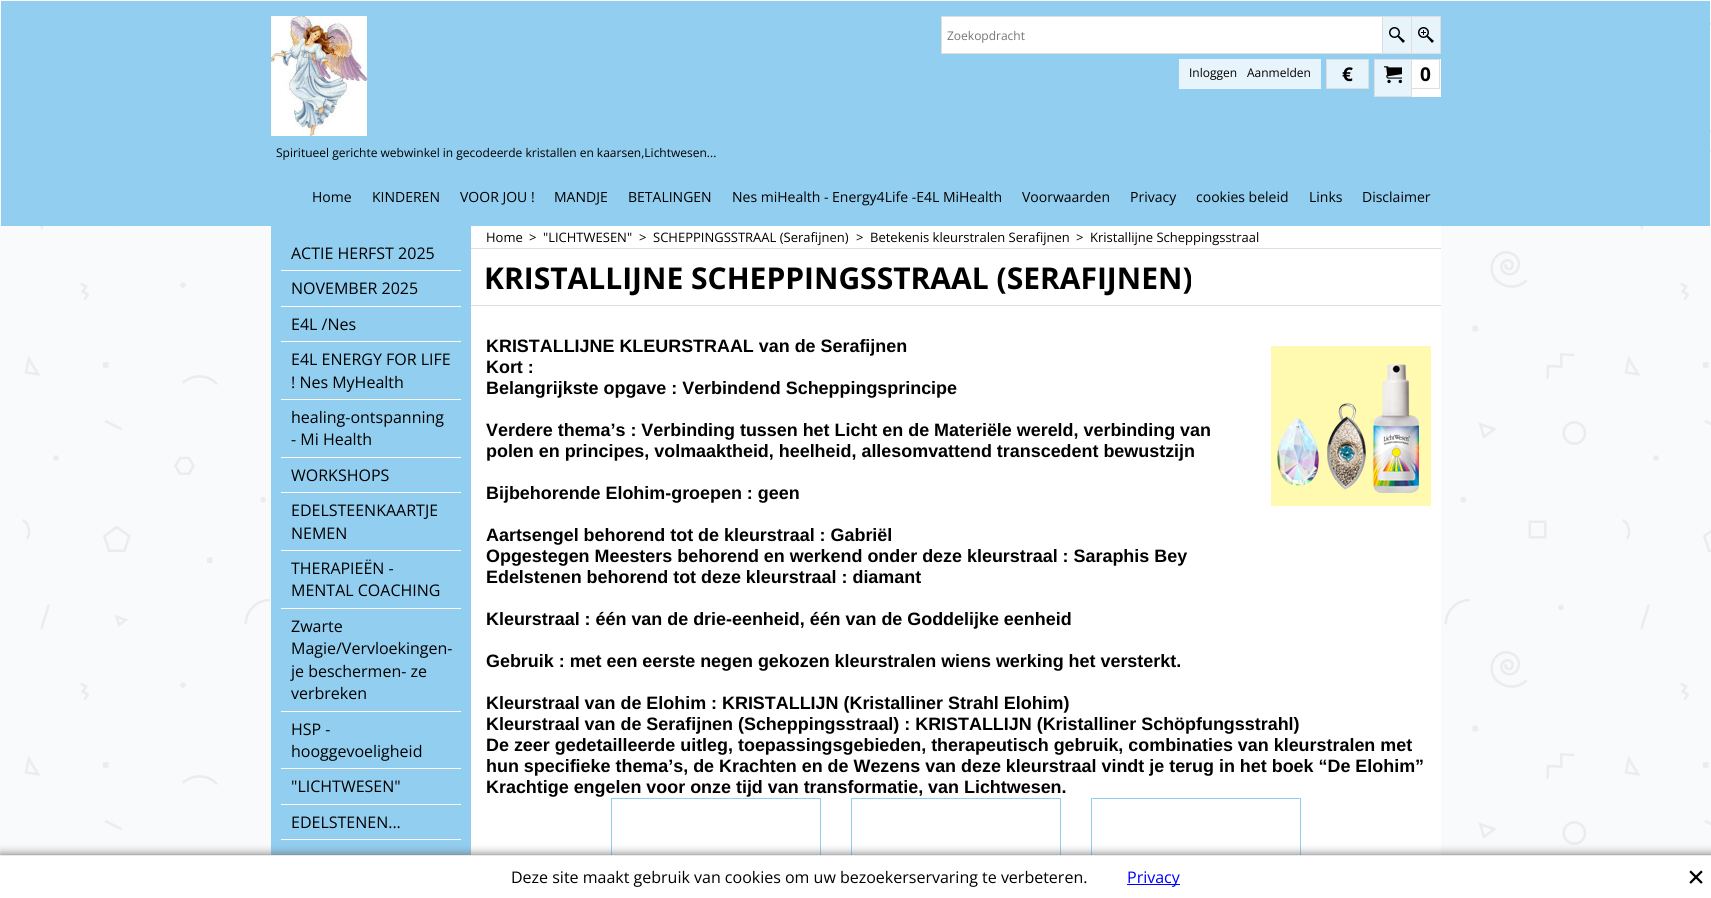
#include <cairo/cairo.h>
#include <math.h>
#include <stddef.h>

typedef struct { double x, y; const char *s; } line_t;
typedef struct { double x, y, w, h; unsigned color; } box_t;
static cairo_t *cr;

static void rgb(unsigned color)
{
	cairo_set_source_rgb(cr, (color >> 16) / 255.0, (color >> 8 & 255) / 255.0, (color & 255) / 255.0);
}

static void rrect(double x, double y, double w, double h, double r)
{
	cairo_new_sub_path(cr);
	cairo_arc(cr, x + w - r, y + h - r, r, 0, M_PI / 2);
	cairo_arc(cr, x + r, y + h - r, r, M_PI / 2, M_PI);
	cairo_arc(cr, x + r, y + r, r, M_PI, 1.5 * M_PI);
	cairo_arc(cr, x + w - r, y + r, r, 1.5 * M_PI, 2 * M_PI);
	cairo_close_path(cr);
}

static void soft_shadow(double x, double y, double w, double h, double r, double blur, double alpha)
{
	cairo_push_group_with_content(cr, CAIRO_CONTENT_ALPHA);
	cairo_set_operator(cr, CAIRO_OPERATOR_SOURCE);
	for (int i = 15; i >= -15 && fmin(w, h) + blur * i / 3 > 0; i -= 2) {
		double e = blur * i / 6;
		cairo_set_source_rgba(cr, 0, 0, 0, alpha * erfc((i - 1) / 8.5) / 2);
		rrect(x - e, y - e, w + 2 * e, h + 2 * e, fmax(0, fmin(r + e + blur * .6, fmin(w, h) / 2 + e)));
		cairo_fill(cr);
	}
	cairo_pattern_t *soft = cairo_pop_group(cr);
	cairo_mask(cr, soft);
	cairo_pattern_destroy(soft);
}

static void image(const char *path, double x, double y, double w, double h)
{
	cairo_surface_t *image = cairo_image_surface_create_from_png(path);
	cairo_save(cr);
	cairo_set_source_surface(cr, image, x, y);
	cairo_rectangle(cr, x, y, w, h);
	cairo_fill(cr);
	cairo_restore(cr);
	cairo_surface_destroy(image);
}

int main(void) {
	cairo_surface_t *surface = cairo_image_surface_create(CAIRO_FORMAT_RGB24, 1711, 898);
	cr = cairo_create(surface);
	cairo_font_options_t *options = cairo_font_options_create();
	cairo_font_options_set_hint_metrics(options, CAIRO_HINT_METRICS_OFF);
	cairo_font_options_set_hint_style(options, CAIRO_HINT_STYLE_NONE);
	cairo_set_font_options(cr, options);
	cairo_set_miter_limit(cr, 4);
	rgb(0xffffff);
	cairo_paint(cr);
	image("img/1.png", 0, 0, 1711, 855);
	rgb(0x92ceef);
	cairo_rectangle(cr, 1, 1, 1709, 225);
	cairo_fill(cr);
	cairo_rectangle(cr, 941.5, 16.5, 499, 37);
	rgb(0xdedede);
	cairo_set_line_width(cr, 1);
	cairo_stroke(cr);
	{
		static const box_t items[] = {
			{942, 17, 440, 36, 0xffffff},
			{1383, 17, 28, 36, 0xe8f4fb},
			{1382, 17, 1, 36, 0xdedede},
		};
		for (size_t i = 0; i < sizeof items / sizeof *items; i++) {
			rgb(items[i].color);
			cairo_rectangle(cr, items[i].x, items[i].y, items[i].w, items[i].h);
			cairo_fill(cr);
		}
	}
	image("img/2.png", 1389, 27, 16, 16);
	rgb(0xe8f4fb);
	cairo_rectangle(cr, 1412, 17, 28, 36);
	cairo_fill(cr);
	rgb(0xdedede);
	cairo_rectangle(cr, 1411, 17, 1, 36);
	cairo_fill(cr);
	image("img/3.png", 1418, 27, 16, 16);
	rgb(0xe8f4fb);
	cairo_rectangle(cr, 1179, 59, 142, 30);
	cairo_fill(cr);
	cairo_rectangle(cr, 1326.5, 59.5, 42, 29);
	cairo_fill_preserve(cr);
	rgb(0xdedede);
	cairo_stroke(cr);
	rgb(0xffffff);
	cairo_rectangle(cr, 1412, 59, 29, 38);
	cairo_fill(cr);
	rgb(0xe8f4fb);
	cairo_rectangle(cr, 1374.5, 59.5, 37, 37);
	cairo_fill_preserve(cr);
	rgb(0xdedede);
	cairo_stroke(cr);
	image("img/4.png", 1384, 66, 18, 18);
	cairo_rectangle(cr, 1411.5, 59.5, 28, 29);
	cairo_stroke(cr);
	image("img/5.png", 271, 16, 96, 120);
	{
		static const box_t items[] = {
			{271, 226, 200, 629, 0x92ceef},
			{281, 270, 180, 1, 0xffffff},
			{281, 306, 180, 1, 0xffffff},
			{281, 341, 180, 1, 0xffffff},
			{281, 399, 180, 1, 0xffffff},
			{281, 457, 180, 1, 0xffffff},
			{281, 492, 180, 1, 0xffffff},
			{281, 550, 180, 1, 0xffffff},
			{281, 608, 180, 1, 0xffffff},
			{281, 711, 180, 1, 0xffffff},
			{281, 768, 180, 1, 0xffffff},
			{281, 804, 180, 1, 0xffffff},
			{281, 839, 180, 1, 0xffffff},
			{471, 226, 970, 629, 0xffffff},
			{471, 248, 970, 1, 0xdedede},
			{471, 305, 970, 1, 0xdedede},
		};
		for (size_t i = 0; i < sizeof items / sizeof *items; i++) {
			rgb(items[i].color);
			cairo_rectangle(cr, items[i].x, items[i].y, items[i].w, items[i].h);
			cairo_fill(cr);
		}
	}
	image("img/6.png", 1271, 346, 160, 160);
	cairo_rectangle(cr, 611.5, 798.5, 209, 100);
	rgb(0x92ceef);
	cairo_stroke(cr);
	cairo_rectangle(cr, 851.5, 798.5, 209, 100);
	cairo_stroke(cr);
	cairo_rectangle(cr, 1091.5, 798.5, 209, 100);
	cairo_stroke(cr);
	rgb(0x666666);
	soft_shadow(0, 855, 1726, 43, 0, 5, 1);
	{
		static const box_t items[] = {
			{0, 856, 1711, 42, 0xffffff},
			{0, 855, 1711, 1, 0xebebeb},
			{1127, 884, 53, 1, 0x0000ff},
		};
		for (size_t i = 0; i < sizeof items / sizeof *items; i++) {
			rgb(items[i].color);
			cairo_rectangle(cr, items[i].x, items[i].y, items[i].w, items[i].h);
			cairo_fill(cr);
		}
	}
	image("img/7.png", 1689, 870, 14, 14);
	cairo_select_font_face(cr, "Open Sans", CAIRO_FONT_SLANT_NORMAL, CAIRO_FONT_WEIGHT_NORMAL);
	cairo_set_font_size(cr, 12);
	rgb(0x757575);
	cairo_move_to(cr, 947, 40);
	cairo_show_text(cr, "Zoekopdracht");
	rgb(0x000000);
	cairo_move_to(cr, 1189, 77);
	cairo_show_text(cr, "Inloggen");
	cairo_move_to(cr, 1247, 77);
	cairo_show_text(cr, "Aanmelden");
	cairo_select_font_face(cr, "Open Sans", CAIRO_FONT_SLANT_NORMAL, CAIRO_FONT_WEIGHT_BOLD);
	cairo_set_font_size(cr, 19);
	cairo_move_to(cr, 1342, 81);
	cairo_show_text(cr, "€");
	cairo_move_to(cr, 1420, 81);
	cairo_show_text(cr, "0");
	cairo_select_font_face(cr, "Open Sans", CAIRO_FONT_SLANT_NORMAL, CAIRO_FONT_WEIGHT_NORMAL);
	cairo_set_font_size(cr, 12);
	cairo_move_to(cr, 276, 157);
	cairo_show_text(cr, "Spiritueel gerichte webwinkel in gecodeerde kristallen en kaarsen,Lichtwesen...");
	cairo_set_font_size(cr, 14);
	{
		static const line_t items[] = {
			{312, 202, "Home"},
			{372, 202, "KINDEREN"},
			{460, 202, "VOOR JOU !"},
			{554, 202, "MANDJE"},
			{628, 202, "BETALINGEN"},
			{732, 202, "Nes miHealth - Energy4Life -E4L MiHealth"},
			{1022, 202, "Voorwaarden"},
			{1130, 202, "Privacy"},
			{1196, 202, "cookies beleid"},
			{1309, 202, "Links"},
			{1362, 202, "Disclaimer"},
		};
		for (size_t i = 0; i < sizeof items / sizeof *items; i++) {
			cairo_move_to(cr, items[i].x, items[i].y);
			cairo_show_text(cr, items[i].s);
		}
	}
	cairo_set_font_size(cr, 16);
	{
		static const line_t items[] = {
			{291, 259, "ACTIE HERFST 2025"},
			{291, 294, "NOVEMBER 2025"},
			{291, 330, "E4L /Nes"},
			{291, 365, "E4L ENERGY FOR LIFE"},
			{291, 388, "! Nes MyHealth"},
			{291, 423, "healing-ontspanning"},
			{291, 445, "- Mi Health"},
			{291, 481, "WORKSHOPS"},
			{291, 516, "EDELSTEENKAARTJE"},
			{291, 539, "NEMEN"},
			{291, 574, "THERAPIEËN -"},
			{291, 596, "MENTAL COACHING"},
			{291, 632, "Zwarte"},
			{291, 654, "Magie/Vervloekingen-"},
			{291, 677, "je beschermen- ze"},
			{291, 699, "verbreken"},
			{291, 735, "HSP -"},
			{291, 757, "hooggevoeligheid"},
			{291, 792, "\"LICHTWESEN\""},
			{291, 828, "EDELSTENEN..."},
		};
		for (size_t i = 0; i < sizeof items / sizeof *items; i++) {
			cairo_move_to(cr, items[i].x, items[i].y);
			cairo_show_text(cr, items[i].s);
		}
	}
	cairo_set_font_size(cr, 13);
	{
		static const line_t items[] = {
			{486, 242, "Home"},
			{529, 242, ">"},
			{543, 242, "\"LICHTWESEN\""},
			{639, 242, ">"},
			{653, 242, "SCHEPPINGSSTRAAL (Serafijnen)"},
			{856, 242, ">"},
			{870, 242, "Betekenis kleurstralen Serafijnen"},
			{1076, 242, ">"},
			{1090, 242, "Kristallijne Scheppingsstraal"},
		};
		for (size_t i = 0; i < sizeof items / sizeof *items; i++) {
			cairo_move_to(cr, items[i].x, items[i].y);
			cairo_show_text(cr, items[i].s);
		}
	}
	cairo_select_font_face(cr, "Open Sans", CAIRO_FONT_SLANT_NORMAL, CAIRO_FONT_WEIGHT_BOLD);
	cairo_set_font_size(cr, 30);
	cairo_move_to(cr, 484, 289);
	cairo_show_text(cr, "KRISTALLIJNE SCHEPPINGSSTRAAL (SERAFIJNEN)");
	cairo_select_font_face(cr, "Liberation Sans", CAIRO_FONT_SLANT_NORMAL, CAIRO_FONT_WEIGHT_BOLD);
	cairo_set_font_size(cr, 17.92);
	{
		static const line_t items[] = {
			{486, 352, "KRISTALLIJNE KLEURSTRAAL van de Serafijnen"},
			{486, 373, "Kort :"},
			{486, 394, "Belangrijkste opgave : Verbindend Scheppingsprincipe"},
			{486, 436, "Verdere thema’s : Verbinding tussen het Licht en de Materiële wereld, verbinding van"},
			{486, 457, "polen en principes, volmaaktheid, heelheid, allesomvattend transcedent bewustzijn"},
			{486, 499, "Bijbehorende Elohim-groepen : geen"},
			{486, 541, "Aartsengel behorend tot de kleurstraal : Gabriël"},
			{486, 562, "Opgestegen Meesters behorend en werkend onder deze kleurstraal : Saraphis Bey"},
			{486, 583, "Edelstenen behorend tot deze kleurstraal : diamant"},
			{486, 625, "Kleurstraal : één van de drie-eenheid, één van de Goddelijke eenheid"},
			{486, 667, "Gebruik : met een eerste negen gekozen kleurstralen wiens werking het versterkt."},
			{486, 709, "Kleurstraal van de Elohim : KRISTALLIJN (Kristalliner Strahl Elohim)"},
			{486, 730, "Kleurstraal van de Serafijnen (Scheppingsstraal) : KRISTALLIJN (Kristalliner Schöpfungsstrahl)"},
			{486, 751, "De zeer gedetailleerde uitleg, toepassingsgebieden, therapeutisch gebruik, combinaties van kleurstralen met"},
			{486, 772, "hun specifieke thema’s, de Krachten en de Wezens van deze kleurstraal vindt je terug in het boek “De Elohim”"},
			{486, 793, "Krachtige engelen voor onze tijd van transformatie, van Lichtwesen."},
		};
		for (size_t i = 0; i < sizeof items / sizeof *items; i++) {
			cairo_move_to(cr, items[i].x, items[i].y);
			cairo_show_text(cr, items[i].s);
		}
	}
	cairo_select_font_face(cr, "Open Sans", CAIRO_FONT_SLANT_NORMAL, CAIRO_FONT_WEIGHT_NORMAL);
	cairo_set_font_size(cr, 16);
	cairo_move_to(cr, 511, 883);
	cairo_show_text(cr, "Deze site maakt gebruik van cookies om uw bezoekerservaring te verbeteren.");
	rgb(0x0000ff);
	cairo_move_to(cr, 1127, 883);
	cairo_show_text(cr, "Privacy");
	cairo_surface_write_to_png(surface, "page.png");
	cairo_font_options_destroy(options);
	cairo_destroy(cr);
	cairo_surface_destroy(surface);
	return 0;
}
